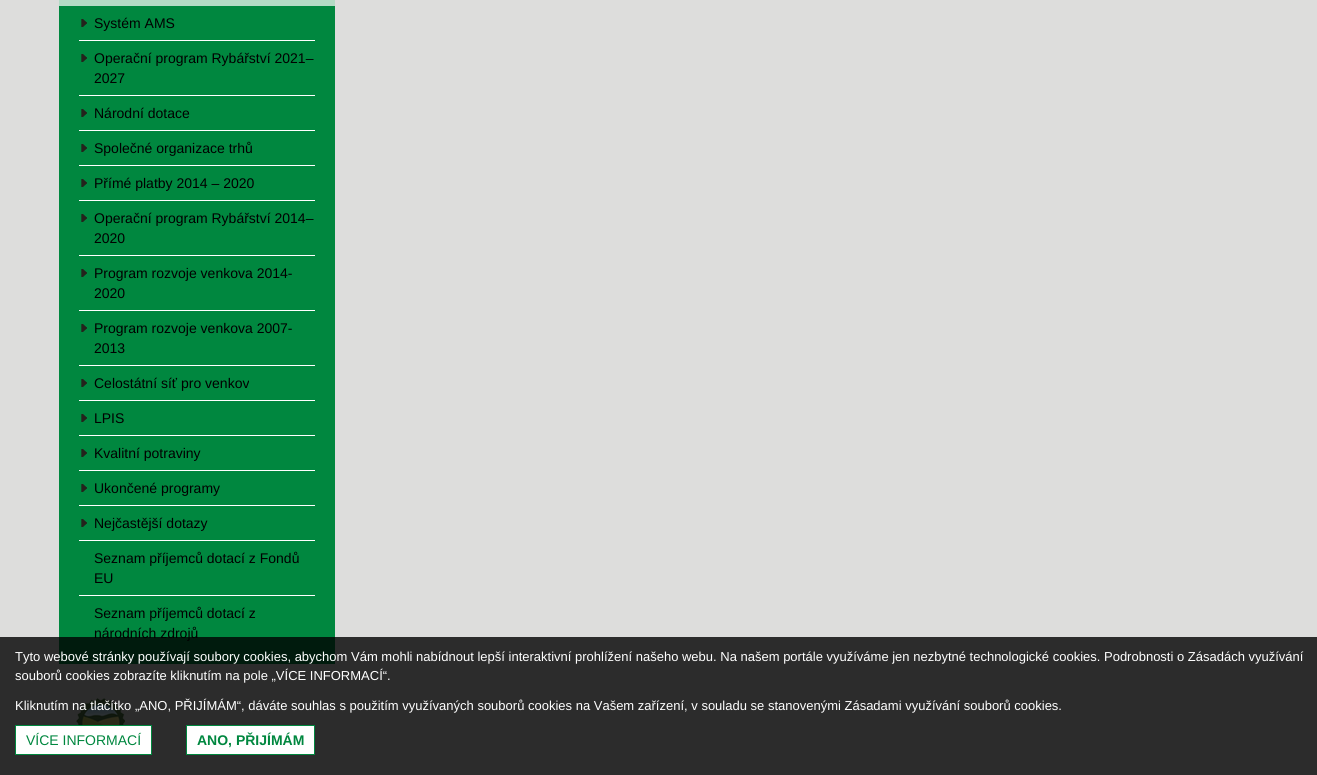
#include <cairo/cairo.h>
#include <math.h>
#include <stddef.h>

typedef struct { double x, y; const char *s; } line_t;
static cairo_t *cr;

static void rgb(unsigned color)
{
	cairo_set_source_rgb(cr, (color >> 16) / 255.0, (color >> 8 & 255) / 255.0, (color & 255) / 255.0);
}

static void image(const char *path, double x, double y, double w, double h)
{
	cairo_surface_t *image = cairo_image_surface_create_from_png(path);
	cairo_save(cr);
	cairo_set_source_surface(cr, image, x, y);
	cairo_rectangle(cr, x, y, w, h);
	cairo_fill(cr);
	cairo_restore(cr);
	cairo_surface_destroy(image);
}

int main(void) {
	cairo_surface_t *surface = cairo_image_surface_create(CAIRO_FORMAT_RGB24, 1317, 775);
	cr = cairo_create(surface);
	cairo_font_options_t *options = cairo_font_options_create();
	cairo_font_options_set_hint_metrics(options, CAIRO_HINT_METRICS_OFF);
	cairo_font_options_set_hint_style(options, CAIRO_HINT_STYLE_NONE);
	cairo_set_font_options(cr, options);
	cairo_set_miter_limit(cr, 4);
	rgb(0xdddddc);
	cairo_paint(cr);
	rgb(0x00873f);
	cairo_rectangle(cr, 59, 6, 276, 658);
	cairo_fill(cr);
	rgb(0xb3dbc5);
	cairo_rectangle(cr, 59, 0, 276, 6);
	cairo_fill(cr);
	image("img/1.png", 81, 19, 6, 8);
	rgb(0xffffff);
	cairo_rectangle(cr, 79, 40, 236, 1);
	cairo_fill(cr);
	image("img/1.png", 81, 54, 6, 8);
	cairo_rectangle(cr, 79, 95, 236, 1);
	cairo_fill(cr);
	image("img/1.png", 81, 109, 6, 8);
	cairo_rectangle(cr, 79, 130, 236, 1);
	cairo_fill(cr);
	image("img/1.png", 81, 144, 6, 8);
	cairo_rectangle(cr, 79, 165, 236, 1);
	cairo_fill(cr);
	image("img/1.png", 81, 179, 6, 8);
	cairo_rectangle(cr, 79, 200, 236, 1);
	cairo_fill(cr);
	image("img/1.png", 81, 214, 6, 8);
	cairo_rectangle(cr, 79, 255, 236, 1);
	cairo_fill(cr);
	image("img/1.png", 81, 269, 6, 8);
	cairo_rectangle(cr, 79, 310, 236, 1);
	cairo_fill(cr);
	image("img/1.png", 81, 324, 6, 8);
	cairo_rectangle(cr, 79, 365, 236, 1);
	cairo_fill(cr);
	image("img/1.png", 81, 379, 6, 8);
	cairo_rectangle(cr, 79, 400, 236, 1);
	cairo_fill(cr);
	image("img/1.png", 81, 414, 6, 8);
	cairo_rectangle(cr, 79, 435, 236, 1);
	cairo_fill(cr);
	image("img/1.png", 81, 449, 6, 8);
	cairo_rectangle(cr, 79, 470, 236, 1);
	cairo_fill(cr);
	image("img/1.png", 81, 484, 6, 8);
	cairo_rectangle(cr, 79, 505, 236, 1);
	cairo_fill(cr);
	image("img/1.png", 81, 519, 6, 8);
	cairo_rectangle(cr, 79, 540, 236, 1);
	cairo_fill(cr);
	cairo_rectangle(cr, 79, 595, 236, 1);
	cairo_fill(cr);
	image("img/2.png", 76, 698, 49, 27);
	cairo_select_font_face(cr, "Liberation Sans", CAIRO_FONT_SLANT_NORMAL, CAIRO_FONT_WEIGHT_NORMAL);
	cairo_set_font_size(cr, 14);
	rgb(0x000000);
	{
		static const line_t items[] = {
			{94, 28, "Systém AMS"},
			{94, 63, "Operační program Rybářství 2021–"},
			{94, 83, "2027"},
			{94, 118, "Národní dotace"},
			{94, 153, "Společné organizace trhů"},
			{94, 188, "Přímé platby 2014 – 2020"},
			{94, 223, "Operační program Rybářství 2014–"},
			{94, 243, "2020"},
			{94, 278, "Program rozvoje venkova 2014-"},
			{94, 298, "2020"},
			{94, 333, "Program rozvoje venkova 2007-"},
			{94, 353, "2013"},
			{94, 388, "Celostátní síť pro venkov"},
			{94, 423, "LPIS"},
			{94, 458, "Kvalitní potraviny"},
			{94, 493, "Ukončené programy"},
			{94, 528, "Nejčastější dotazy"},
			{94, 563, "Seznam příjemců dotací z Fondů"},
			{94, 583, "EU"},
			{94, 618, "Seznam příjemců dotací z"},
			{94, 638, "národních zdrojů"},
		};
		for (size_t i = 0; i < sizeof items / sizeof *items; i++) {
			cairo_move_to(cr, items[i].x, items[i].y);
			cairo_show_text(cr, items[i].s);
		}
	}
	cairo_set_source_rgba(cr, 0, 0, 0, 0.8);
	cairo_rectangle(cr, 0, 637, 1317, 138);
	cairo_fill(cr);
	cairo_set_font_size(cr, 13);
	rgb(0xffffff);
	{
		static const line_t items[] = {
			{15, 661, "Tyto webové stránky používají soubory cookies, abychom Vám mohli nabídnout lepší interaktivní prohlížení našeho webu. Na našem portále využíváme jen nezbytné technologické cookies. Podrobnosti o Zásadách využívání"},
			{15, 680, "souborů cookies zobrazíte kliknutím na pole „VÍCE INFORMACÍ“."},
			{15, 710, "Kliknutím na tlačítko „ANO, PŘIJÍMÁM“, dáváte souhlas s použitím využívaných souborů cookies na Vašem zařízení, v souladu se stanovenými Zásadami využívání souborů cookies."},
		};
		for (size_t i = 0; i < sizeof items / sizeof *items; i++) {
			cairo_move_to(cr, items[i].x, items[i].y);
			cairo_show_text(cr, items[i].s);
		}
	}
	cairo_rectangle(cr, 15.5, 725.5, 136, 29);
	cairo_fill_preserve(cr);
	rgb(0x00873f);
	cairo_set_line_width(cr, 1);
	cairo_stroke(cr);
	cairo_set_font_size(cr, 14);
	cairo_move_to(cr, 26, 745);
	cairo_show_text(cr, "VÍCE INFORMACÍ");
	rgb(0xffffff);
	cairo_rectangle(cr, 186.5, 725.5, 128, 29);
	cairo_fill_preserve(cr);
	rgb(0x00873f);
	cairo_stroke(cr);
	cairo_select_font_face(cr, "Liberation Sans", CAIRO_FONT_SLANT_NORMAL, CAIRO_FONT_WEIGHT_BOLD);
	cairo_move_to(cr, 197, 745);
	cairo_show_text(cr, "ANO, PŘIJÍMÁM");
	cairo_surface_write_to_png(surface, "page.png");
	cairo_font_options_destroy(options);
	cairo_destroy(cr);
	cairo_surface_destroy(surface);
	return 0;
}
